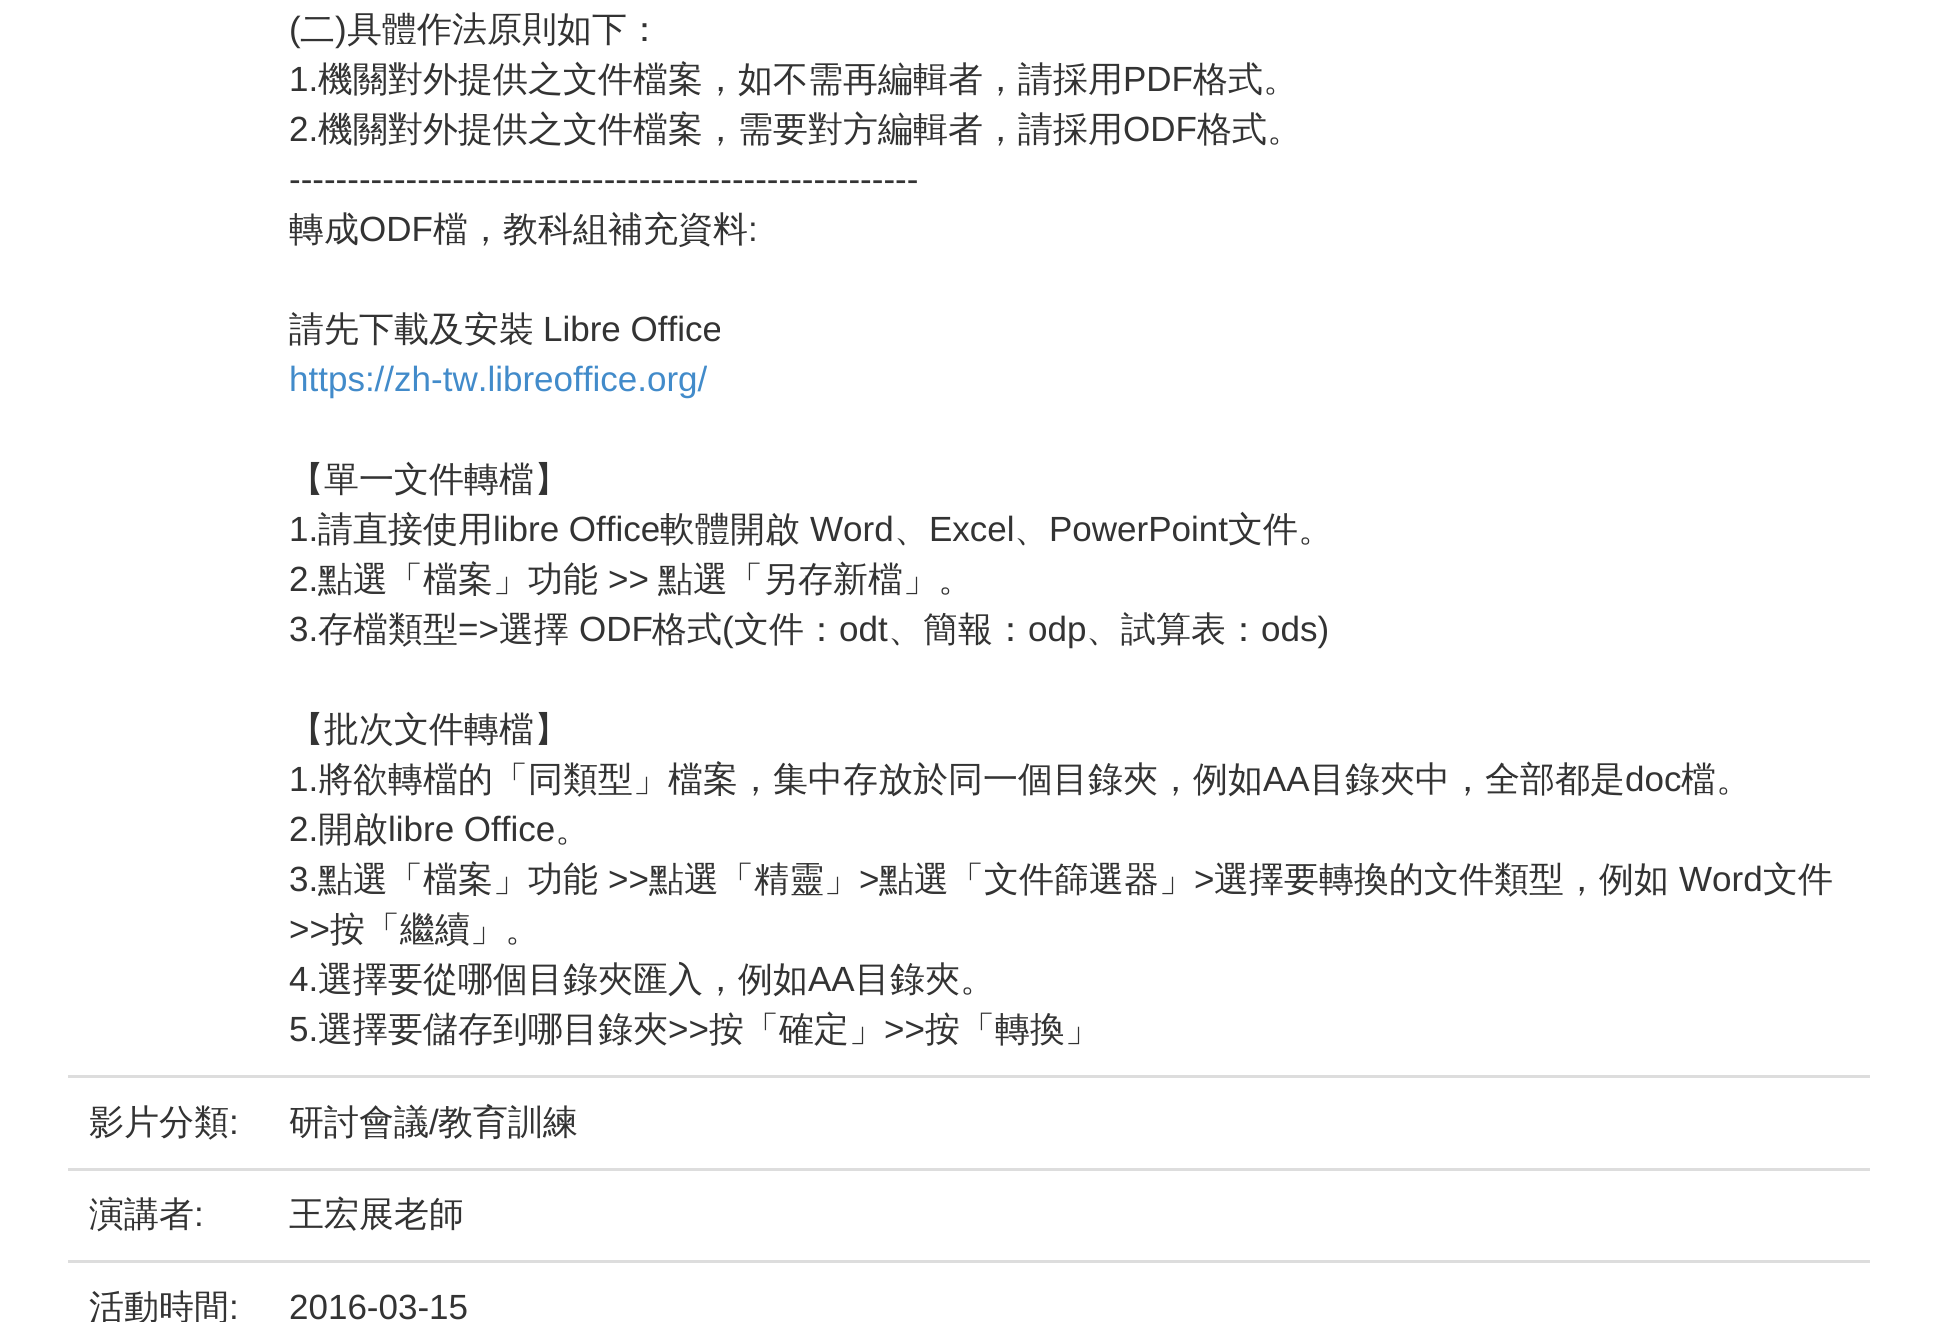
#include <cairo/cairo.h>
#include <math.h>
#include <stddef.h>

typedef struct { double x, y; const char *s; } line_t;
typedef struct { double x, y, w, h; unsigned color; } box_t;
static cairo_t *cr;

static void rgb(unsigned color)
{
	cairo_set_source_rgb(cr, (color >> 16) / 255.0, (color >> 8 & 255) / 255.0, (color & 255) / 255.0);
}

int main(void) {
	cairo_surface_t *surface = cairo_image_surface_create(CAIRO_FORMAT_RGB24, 1936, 1322);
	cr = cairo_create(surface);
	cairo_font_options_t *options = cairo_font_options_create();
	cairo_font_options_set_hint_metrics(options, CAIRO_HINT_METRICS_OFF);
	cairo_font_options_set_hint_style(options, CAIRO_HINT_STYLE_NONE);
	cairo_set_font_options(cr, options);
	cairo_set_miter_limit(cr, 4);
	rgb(0xffffff);
	cairo_paint(cr);
	{
		static const box_t items[] = {
			{68, 1075, 1802, 3, 0xdddddd},
			{68, 1168, 1802, 3, 0xdddddd},
			{68, 1260, 1802, 3, 0xdddddd},
		};
		for (size_t i = 0; i < sizeof items / sizeof *items; i++) {
			rgb(items[i].color);
			cairo_rectangle(cr, items[i].x, items[i].y, items[i].w, items[i].h);
			cairo_fill(cr);
		}
	}
	cairo_select_font_face(cr, "Liberation Sans", CAIRO_FONT_SLANT_NORMAL, CAIRO_FONT_WEIGHT_NORMAL);
	cairo_set_font_size(cr, 35);
	rgb(0x333333);
	cairo_move_to(cr, 289, 41);
	cairo_show_text(cr, "(");
	cairo_select_font_face(cr, "WenQuanYi Zen Hei Medium", CAIRO_FONT_SLANT_NORMAL, CAIRO_FONT_WEIGHT_NORMAL);
	cairo_move_to(cr, 300, 41);
	cairo_show_text(cr, "二");
	cairo_select_font_face(cr, "Liberation Sans", CAIRO_FONT_SLANT_NORMAL, CAIRO_FONT_WEIGHT_NORMAL);
	cairo_move_to(cr, 335, 41);
	cairo_show_text(cr, ")");
	cairo_select_font_face(cr, "WenQuanYi Zen Hei Medium", CAIRO_FONT_SLANT_NORMAL, CAIRO_FONT_WEIGHT_NORMAL);
	cairo_move_to(cr, 347, 41);
	cairo_show_text(cr, "具體作法原則如下：");
	cairo_select_font_face(cr, "Liberation Sans", CAIRO_FONT_SLANT_NORMAL, CAIRO_FONT_WEIGHT_NORMAL);
	cairo_move_to(cr, 289, 91);
	cairo_show_text(cr, "1.");
	cairo_select_font_face(cr, "WenQuanYi Zen Hei Medium", CAIRO_FONT_SLANT_NORMAL, CAIRO_FONT_WEIGHT_NORMAL);
	cairo_move_to(cr, 318, 91);
	cairo_show_text(cr, "機關對外提供之文件檔案，如不需再編輯者，請採用");
	cairo_select_font_face(cr, "Liberation Sans", CAIRO_FONT_SLANT_NORMAL, CAIRO_FONT_WEIGHT_NORMAL);
	cairo_move_to(cr, 1123, 91);
	cairo_show_text(cr, "PDF");
	cairo_select_font_face(cr, "WenQuanYi Zen Hei Medium", CAIRO_FONT_SLANT_NORMAL, CAIRO_FONT_WEIGHT_NORMAL);
	cairo_move_to(cr, 1193, 91);
	cairo_show_text(cr, "格式。");
	cairo_select_font_face(cr, "Liberation Sans", CAIRO_FONT_SLANT_NORMAL, CAIRO_FONT_WEIGHT_NORMAL);
	cairo_move_to(cr, 289, 141);
	cairo_show_text(cr, "2.");
	cairo_select_font_face(cr, "WenQuanYi Zen Hei Medium", CAIRO_FONT_SLANT_NORMAL, CAIRO_FONT_WEIGHT_NORMAL);
	cairo_move_to(cr, 318, 141);
	cairo_show_text(cr, "機關對外提供之文件檔案，需要對方編輯者，請採用");
	cairo_select_font_face(cr, "Liberation Sans", CAIRO_FONT_SLANT_NORMAL, CAIRO_FONT_WEIGHT_NORMAL);
	cairo_move_to(cr, 1123, 141);
	cairo_show_text(cr, "ODF");
	cairo_select_font_face(cr, "WenQuanYi Zen Hei Medium", CAIRO_FONT_SLANT_NORMAL, CAIRO_FONT_WEIGHT_NORMAL);
	cairo_move_to(cr, 1197, 141);
	cairo_show_text(cr, "格式。");
	cairo_select_font_face(cr, "Liberation Sans", CAIRO_FONT_SLANT_NORMAL, CAIRO_FONT_WEIGHT_NORMAL);
	cairo_move_to(cr, 289, 191);
	cairo_show_text(cr, "------------------------------------------------------");
	cairo_select_font_face(cr, "WenQuanYi Zen Hei Medium", CAIRO_FONT_SLANT_NORMAL, CAIRO_FONT_WEIGHT_NORMAL);
	cairo_move_to(cr, 289, 241);
	cairo_show_text(cr, "轉成");
	cairo_select_font_face(cr, "Liberation Sans", CAIRO_FONT_SLANT_NORMAL, CAIRO_FONT_WEIGHT_NORMAL);
	cairo_move_to(cr, 359, 241);
	cairo_show_text(cr, "ODF");
	cairo_select_font_face(cr, "WenQuanYi Zen Hei Medium", CAIRO_FONT_SLANT_NORMAL, CAIRO_FONT_WEIGHT_NORMAL);
	cairo_move_to(cr, 433, 241);
	cairo_show_text(cr, "檔，教科組補充資料");
	cairo_select_font_face(cr, "Liberation Sans", CAIRO_FONT_SLANT_NORMAL, CAIRO_FONT_WEIGHT_NORMAL);
	cairo_move_to(cr, 748, 241);
	cairo_show_text(cr, ":");
	cairo_select_font_face(cr, "WenQuanYi Zen Hei Medium", CAIRO_FONT_SLANT_NORMAL, CAIRO_FONT_WEIGHT_NORMAL);
	cairo_move_to(cr, 289, 341);
	cairo_show_text(cr, "請先下載及安裝");
	cairo_select_font_face(cr, "Liberation Sans", CAIRO_FONT_SLANT_NORMAL, CAIRO_FONT_WEIGHT_NORMAL);
	cairo_move_to(cr, 543, 341);
	cairo_show_text(cr, "Libre Office");
	rgb(0x428bca);
	cairo_move_to(cr, 289, 391);
	cairo_show_text(cr, "https://zh-tw.libreoffice.org/");
	cairo_select_font_face(cr, "WenQuanYi Zen Hei Medium", CAIRO_FONT_SLANT_NORMAL, CAIRO_FONT_WEIGHT_NORMAL);
	rgb(0x333333);
	cairo_move_to(cr, 289, 491);
	cairo_show_text(cr, "【單一文件轉檔】");
	cairo_select_font_face(cr, "Liberation Sans", CAIRO_FONT_SLANT_NORMAL, CAIRO_FONT_WEIGHT_NORMAL);
	cairo_move_to(cr, 289, 541);
	cairo_show_text(cr, "1.");
	cairo_select_font_face(cr, "WenQuanYi Zen Hei Medium", CAIRO_FONT_SLANT_NORMAL, CAIRO_FONT_WEIGHT_NORMAL);
	cairo_move_to(cr, 318, 541);
	cairo_show_text(cr, "請直接使用");
	cairo_select_font_face(cr, "Liberation Sans", CAIRO_FONT_SLANT_NORMAL, CAIRO_FONT_WEIGHT_NORMAL);
	cairo_move_to(cr, 493, 541);
	cairo_show_text(cr, "libre Office");
	cairo_select_font_face(cr, "WenQuanYi Zen Hei Medium", CAIRO_FONT_SLANT_NORMAL, CAIRO_FONT_WEIGHT_NORMAL);
	cairo_move_to(cr, 660, 541);
	cairo_show_text(cr, "軟體開啟");
	cairo_select_font_face(cr, "Liberation Sans", CAIRO_FONT_SLANT_NORMAL, CAIRO_FONT_WEIGHT_NORMAL);
	{
		static const line_t items[] = {
			{810, 541, "Word"},
			{929, 541, "Excel"},
			{1049, 541, "PowerPoint"},
		};
		for (size_t i = 0; i < sizeof items / sizeof *items; i++) {
			cairo_move_to(cr, items[i].x, items[i].y);
			cairo_show_text(cr, items[i].s);
		}
	}
	cairo_select_font_face(cr, "WenQuanYi Zen Hei Medium", CAIRO_FONT_SLANT_NORMAL, CAIRO_FONT_WEIGHT_NORMAL);
	{
		static const line_t items[] = {
			{1228, 541, "文件。"},
			{894, 541, "、"},
			{1014, 541, "、"},
		};
		for (size_t i = 0; i < sizeof items / sizeof *items; i++) {
			cairo_move_to(cr, items[i].x, items[i].y);
			cairo_show_text(cr, items[i].s);
		}
	}
	cairo_select_font_face(cr, "Liberation Sans", CAIRO_FONT_SLANT_NORMAL, CAIRO_FONT_WEIGHT_NORMAL);
	cairo_move_to(cr, 289, 591);
	cairo_show_text(cr, "2.");
	cairo_select_font_face(cr, "WenQuanYi Zen Hei Medium", CAIRO_FONT_SLANT_NORMAL, CAIRO_FONT_WEIGHT_NORMAL);
	cairo_move_to(cr, 318, 591);
	cairo_show_text(cr, "點選「檔案」功能");
	cairo_select_font_face(cr, "Liberation Sans", CAIRO_FONT_SLANT_NORMAL, CAIRO_FONT_WEIGHT_NORMAL);
	cairo_move_to(cr, 608, 591);
	cairo_show_text(cr, ">>");
	cairo_select_font_face(cr, "WenQuanYi Zen Hei Medium", CAIRO_FONT_SLANT_NORMAL, CAIRO_FONT_WEIGHT_NORMAL);
	cairo_move_to(cr, 658, 591);
	cairo_show_text(cr, "點選「另存新檔」。");
	cairo_select_font_face(cr, "Liberation Sans", CAIRO_FONT_SLANT_NORMAL, CAIRO_FONT_WEIGHT_NORMAL);
	cairo_move_to(cr, 289, 641);
	cairo_show_text(cr, "3.");
	cairo_select_font_face(cr, "WenQuanYi Zen Hei Medium", CAIRO_FONT_SLANT_NORMAL, CAIRO_FONT_WEIGHT_NORMAL);
	cairo_move_to(cr, 318, 641);
	cairo_show_text(cr, "存檔類型");
	cairo_select_font_face(cr, "Liberation Sans", CAIRO_FONT_SLANT_NORMAL, CAIRO_FONT_WEIGHT_NORMAL);
	cairo_move_to(cr, 458, 641);
	cairo_show_text(cr, "=>");
	cairo_select_font_face(cr, "WenQuanYi Zen Hei Medium", CAIRO_FONT_SLANT_NORMAL, CAIRO_FONT_WEIGHT_NORMAL);
	cairo_move_to(cr, 499, 641);
	cairo_show_text(cr, "選擇");
	cairo_select_font_face(cr, "Liberation Sans", CAIRO_FONT_SLANT_NORMAL, CAIRO_FONT_WEIGHT_NORMAL);
	cairo_move_to(cr, 579, 641);
	cairo_show_text(cr, "ODF");
	cairo_select_font_face(cr, "WenQuanYi Zen Hei Medium", CAIRO_FONT_SLANT_NORMAL, CAIRO_FONT_WEIGHT_NORMAL);
	cairo_move_to(cr, 652, 641);
	cairo_show_text(cr, "格式");
	cairo_select_font_face(cr, "Liberation Sans", CAIRO_FONT_SLANT_NORMAL, CAIRO_FONT_WEIGHT_NORMAL);
	cairo_move_to(cr, 722, 641);
	cairo_show_text(cr, "(");
	cairo_select_font_face(cr, "WenQuanYi Zen Hei Medium", CAIRO_FONT_SLANT_NORMAL, CAIRO_FONT_WEIGHT_NORMAL);
	cairo_move_to(cr, 734, 641);
	cairo_show_text(cr, "文件：");
	cairo_select_font_face(cr, "Liberation Sans", CAIRO_FONT_SLANT_NORMAL, CAIRO_FONT_WEIGHT_NORMAL);
	cairo_move_to(cr, 839, 641);
	cairo_show_text(cr, "odt");
	cairo_select_font_face(cr, "WenQuanYi Zen Hei Medium", CAIRO_FONT_SLANT_NORMAL, CAIRO_FONT_WEIGHT_NORMAL);
	cairo_move_to(cr, 888, 641);
	cairo_show_text(cr, "、簡報：");
	cairo_select_font_face(cr, "Liberation Sans", CAIRO_FONT_SLANT_NORMAL, CAIRO_FONT_WEIGHT_NORMAL);
	cairo_move_to(cr, 1028, 641);
	cairo_show_text(cr, "odp");
	cairo_select_font_face(cr, "WenQuanYi Zen Hei Medium", CAIRO_FONT_SLANT_NORMAL, CAIRO_FONT_WEIGHT_NORMAL);
	cairo_move_to(cr, 1086, 641);
	cairo_show_text(cr, "、試算表：");
	cairo_select_font_face(cr, "Liberation Sans", CAIRO_FONT_SLANT_NORMAL, CAIRO_FONT_WEIGHT_NORMAL);
	cairo_move_to(cr, 1261, 641);
	cairo_show_text(cr, "ods)");
	cairo_select_font_face(cr, "WenQuanYi Zen Hei Medium", CAIRO_FONT_SLANT_NORMAL, CAIRO_FONT_WEIGHT_NORMAL);
	cairo_move_to(cr, 289, 741);
	cairo_show_text(cr, "【批次文件轉檔】");
	cairo_select_font_face(cr, "Liberation Sans", CAIRO_FONT_SLANT_NORMAL, CAIRO_FONT_WEIGHT_NORMAL);
	cairo_move_to(cr, 289, 791);
	cairo_show_text(cr, "1.");
	cairo_select_font_face(cr, "WenQuanYi Zen Hei Medium", CAIRO_FONT_SLANT_NORMAL, CAIRO_FONT_WEIGHT_NORMAL);
	cairo_move_to(cr, 318, 791);
	cairo_show_text(cr, "將欲轉檔的「同類型」檔案，集中存放於同一個目錄夾，例如");
	cairo_select_font_face(cr, "Liberation Sans", CAIRO_FONT_SLANT_NORMAL, CAIRO_FONT_WEIGHT_NORMAL);
	cairo_move_to(cr, 1263, 791);
	cairo_show_text(cr, "AA");
	cairo_select_font_face(cr, "WenQuanYi Zen Hei Medium", CAIRO_FONT_SLANT_NORMAL, CAIRO_FONT_WEIGHT_NORMAL);
	cairo_move_to(cr, 1310, 791);
	cairo_show_text(cr, "目錄夾中，全部都是");
	cairo_select_font_face(cr, "Liberation Sans", CAIRO_FONT_SLANT_NORMAL, CAIRO_FONT_WEIGHT_NORMAL);
	cairo_move_to(cr, 1625, 791);
	cairo_show_text(cr, "doc");
	cairo_select_font_face(cr, "WenQuanYi Zen Hei Medium", CAIRO_FONT_SLANT_NORMAL, CAIRO_FONT_WEIGHT_NORMAL);
	cairo_move_to(cr, 1681, 791);
	cairo_show_text(cr, "檔。");
	cairo_select_font_face(cr, "Liberation Sans", CAIRO_FONT_SLANT_NORMAL, CAIRO_FONT_WEIGHT_NORMAL);
	cairo_move_to(cr, 289, 841);
	cairo_show_text(cr, "2.");
	cairo_select_font_face(cr, "WenQuanYi Zen Hei Medium", CAIRO_FONT_SLANT_NORMAL, CAIRO_FONT_WEIGHT_NORMAL);
	cairo_move_to(cr, 318, 841);
	cairo_show_text(cr, "開啟");
	cairo_select_font_face(cr, "Liberation Sans", CAIRO_FONT_SLANT_NORMAL, CAIRO_FONT_WEIGHT_NORMAL);
	cairo_move_to(cr, 388, 841);
	cairo_show_text(cr, "libre Office");
	cairo_select_font_face(cr, "WenQuanYi Zen Hei Medium", CAIRO_FONT_SLANT_NORMAL, CAIRO_FONT_WEIGHT_NORMAL);
	cairo_move_to(cr, 555, 841);
	cairo_show_text(cr, "。");
	cairo_select_font_face(cr, "Liberation Sans", CAIRO_FONT_SLANT_NORMAL, CAIRO_FONT_WEIGHT_NORMAL);
	cairo_move_to(cr, 289, 891);
	cairo_show_text(cr, "3.");
	cairo_select_font_face(cr, "WenQuanYi Zen Hei Medium", CAIRO_FONT_SLANT_NORMAL, CAIRO_FONT_WEIGHT_NORMAL);
	cairo_move_to(cr, 318, 891);
	cairo_show_text(cr, "點選「檔案」功能");
	cairo_select_font_face(cr, "Liberation Sans", CAIRO_FONT_SLANT_NORMAL, CAIRO_FONT_WEIGHT_NORMAL);
	cairo_move_to(cr, 608, 891);
	cairo_show_text(cr, ">>");
	cairo_select_font_face(cr, "WenQuanYi Zen Hei Medium", CAIRO_FONT_SLANT_NORMAL, CAIRO_FONT_WEIGHT_NORMAL);
	cairo_move_to(cr, 649, 891);
	cairo_show_text(cr, "點選「精靈」");
	cairo_select_font_face(cr, "Liberation Sans", CAIRO_FONT_SLANT_NORMAL, CAIRO_FONT_WEIGHT_NORMAL);
	cairo_move_to(cr, 859, 891);
	cairo_show_text(cr, ">");
	cairo_select_font_face(cr, "WenQuanYi Zen Hei Medium", CAIRO_FONT_SLANT_NORMAL, CAIRO_FONT_WEIGHT_NORMAL);
	cairo_move_to(cr, 879, 891);
	cairo_show_text(cr, "點選「文件篩選器」");
	cairo_select_font_face(cr, "Liberation Sans", CAIRO_FONT_SLANT_NORMAL, CAIRO_FONT_WEIGHT_NORMAL);
	cairo_move_to(cr, 1194, 891);
	cairo_show_text(cr, ">");
	cairo_select_font_face(cr, "WenQuanYi Zen Hei Medium", CAIRO_FONT_SLANT_NORMAL, CAIRO_FONT_WEIGHT_NORMAL);
	cairo_move_to(cr, 1214, 891);
	cairo_show_text(cr, "選擇要轉換的文件類型，例如");
	cairo_select_font_face(cr, "Liberation Sans", CAIRO_FONT_SLANT_NORMAL, CAIRO_FONT_WEIGHT_NORMAL);
	cairo_move_to(cr, 1679, 891);
	cairo_show_text(cr, "Word");
	cairo_select_font_face(cr, "WenQuanYi Zen Hei Medium", CAIRO_FONT_SLANT_NORMAL, CAIRO_FONT_WEIGHT_NORMAL);
	cairo_move_to(cr, 1763, 891);
	cairo_show_text(cr, "文件");
	cairo_select_font_face(cr, "Liberation Sans", CAIRO_FONT_SLANT_NORMAL, CAIRO_FONT_WEIGHT_NORMAL);
	cairo_move_to(cr, 289, 941);
	cairo_show_text(cr, ">>");
	cairo_select_font_face(cr, "WenQuanYi Zen Hei Medium", CAIRO_FONT_SLANT_NORMAL, CAIRO_FONT_WEIGHT_NORMAL);
	cairo_move_to(cr, 330, 941);
	cairo_show_text(cr, "按「繼續」。");
	cairo_select_font_face(cr, "Liberation Sans", CAIRO_FONT_SLANT_NORMAL, CAIRO_FONT_WEIGHT_NORMAL);
	cairo_move_to(cr, 289, 991);
	cairo_show_text(cr, "4.");
	cairo_select_font_face(cr, "WenQuanYi Zen Hei Medium", CAIRO_FONT_SLANT_NORMAL, CAIRO_FONT_WEIGHT_NORMAL);
	cairo_move_to(cr, 318, 991);
	cairo_show_text(cr, "選擇要從哪個目錄夾匯入，例如");
	cairo_select_font_face(cr, "Liberation Sans", CAIRO_FONT_SLANT_NORMAL, CAIRO_FONT_WEIGHT_NORMAL);
	cairo_move_to(cr, 808, 991);
	cairo_show_text(cr, "AA");
	cairo_select_font_face(cr, "WenQuanYi Zen Hei Medium", CAIRO_FONT_SLANT_NORMAL, CAIRO_FONT_WEIGHT_NORMAL);
	cairo_move_to(cr, 855, 991);
	cairo_show_text(cr, "目錄夾。");
	cairo_select_font_face(cr, "Liberation Sans", CAIRO_FONT_SLANT_NORMAL, CAIRO_FONT_WEIGHT_NORMAL);
	cairo_move_to(cr, 289, 1041);
	cairo_show_text(cr, "5.");
	cairo_select_font_face(cr, "WenQuanYi Zen Hei Medium", CAIRO_FONT_SLANT_NORMAL, CAIRO_FONT_WEIGHT_NORMAL);
	cairo_move_to(cr, 318, 1041);
	cairo_show_text(cr, "選擇要儲存到哪目錄夾");
	cairo_select_font_face(cr, "Liberation Sans", CAIRO_FONT_SLANT_NORMAL, CAIRO_FONT_WEIGHT_NORMAL);
	cairo_move_to(cr, 668, 1041);
	cairo_show_text(cr, ">>");
	cairo_select_font_face(cr, "WenQuanYi Zen Hei Medium", CAIRO_FONT_SLANT_NORMAL, CAIRO_FONT_WEIGHT_NORMAL);
	cairo_move_to(cr, 709, 1041);
	cairo_show_text(cr, "按「確定」");
	cairo_select_font_face(cr, "Liberation Sans", CAIRO_FONT_SLANT_NORMAL, CAIRO_FONT_WEIGHT_NORMAL);
	cairo_move_to(cr, 884, 1041);
	cairo_show_text(cr, ">>");
	cairo_select_font_face(cr, "WenQuanYi Zen Hei Medium", CAIRO_FONT_SLANT_NORMAL, CAIRO_FONT_WEIGHT_NORMAL);
	cairo_move_to(cr, 925, 1041);
	cairo_show_text(cr, "按「轉換」");
	cairo_move_to(cr, 89, 1134);
	cairo_show_text(cr, "影片分類");
	cairo_select_font_face(cr, "Liberation Sans", CAIRO_FONT_SLANT_NORMAL, CAIRO_FONT_WEIGHT_NORMAL);
	cairo_move_to(cr, 229, 1134);
	cairo_show_text(cr, ":");
	cairo_select_font_face(cr, "WenQuanYi Zen Hei Medium", CAIRO_FONT_SLANT_NORMAL, CAIRO_FONT_WEIGHT_NORMAL);
	cairo_move_to(cr, 289, 1134);
	cairo_show_text(cr, "研討會議");
	cairo_select_font_face(cr, "Liberation Sans", CAIRO_FONT_SLANT_NORMAL, CAIRO_FONT_WEIGHT_NORMAL);
	cairo_move_to(cr, 429, 1134);
	cairo_show_text(cr, "/");
	cairo_select_font_face(cr, "WenQuanYi Zen Hei Medium", CAIRO_FONT_SLANT_NORMAL, CAIRO_FONT_WEIGHT_NORMAL);
	cairo_move_to(cr, 438, 1134);
	cairo_show_text(cr, "教育訓練");
	cairo_move_to(cr, 89, 1226);
	cairo_show_text(cr, "演講者");
	cairo_select_font_face(cr, "Liberation Sans", CAIRO_FONT_SLANT_NORMAL, CAIRO_FONT_WEIGHT_NORMAL);
	cairo_move_to(cr, 194, 1226);
	cairo_show_text(cr, ":");
	cairo_select_font_face(cr, "WenQuanYi Zen Hei Medium", CAIRO_FONT_SLANT_NORMAL, CAIRO_FONT_WEIGHT_NORMAL);
	cairo_move_to(cr, 289, 1226);
	cairo_show_text(cr, "王宏展老師");
	cairo_move_to(cr, 89, 1319);
	cairo_show_text(cr, "活動時間");
	cairo_select_font_face(cr, "Liberation Sans", CAIRO_FONT_SLANT_NORMAL, CAIRO_FONT_WEIGHT_NORMAL);
	cairo_move_to(cr, 229, 1319);
	cairo_show_text(cr, ":");
	cairo_move_to(cr, 289, 1319);
	cairo_show_text(cr, "2016-03-15");
	cairo_surface_write_to_png(surface, "page.png");
	cairo_font_options_destroy(options);
	cairo_destroy(cr);
	cairo_surface_destroy(surface);
	return 0;
}
